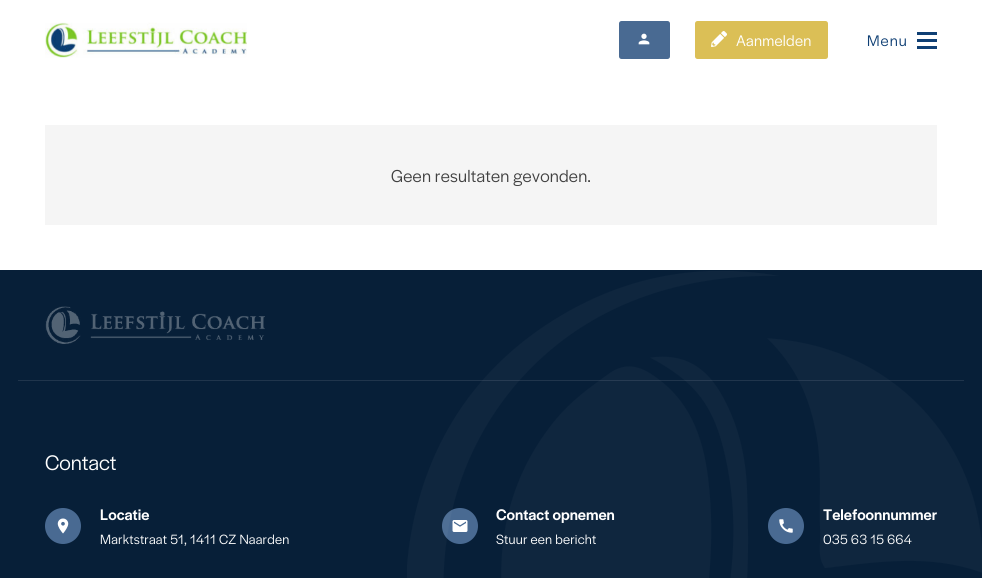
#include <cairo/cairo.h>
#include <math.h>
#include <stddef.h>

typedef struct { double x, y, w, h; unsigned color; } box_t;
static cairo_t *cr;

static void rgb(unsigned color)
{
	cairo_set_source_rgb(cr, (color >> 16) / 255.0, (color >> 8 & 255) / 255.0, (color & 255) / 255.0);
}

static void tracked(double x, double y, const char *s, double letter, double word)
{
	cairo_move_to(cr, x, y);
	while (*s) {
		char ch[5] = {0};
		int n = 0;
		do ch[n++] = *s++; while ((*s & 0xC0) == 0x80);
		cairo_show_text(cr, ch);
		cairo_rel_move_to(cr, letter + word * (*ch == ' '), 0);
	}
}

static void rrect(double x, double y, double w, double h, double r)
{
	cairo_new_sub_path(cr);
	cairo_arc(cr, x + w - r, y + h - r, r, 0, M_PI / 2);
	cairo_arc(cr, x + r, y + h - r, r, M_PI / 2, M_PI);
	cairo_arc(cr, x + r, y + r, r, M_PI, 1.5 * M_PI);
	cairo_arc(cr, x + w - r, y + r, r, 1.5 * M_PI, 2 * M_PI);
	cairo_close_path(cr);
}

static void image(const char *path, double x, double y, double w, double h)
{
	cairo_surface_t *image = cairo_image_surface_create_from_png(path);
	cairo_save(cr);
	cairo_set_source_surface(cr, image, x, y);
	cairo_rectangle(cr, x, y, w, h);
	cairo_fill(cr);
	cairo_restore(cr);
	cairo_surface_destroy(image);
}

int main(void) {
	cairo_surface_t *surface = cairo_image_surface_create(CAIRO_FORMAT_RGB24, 982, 578);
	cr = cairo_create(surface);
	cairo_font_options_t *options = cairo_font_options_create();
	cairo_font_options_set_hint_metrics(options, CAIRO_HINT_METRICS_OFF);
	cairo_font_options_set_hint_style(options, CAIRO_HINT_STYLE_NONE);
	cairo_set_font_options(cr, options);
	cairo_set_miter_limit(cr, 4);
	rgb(0xffffff);
	cairo_paint(cr);
	image("img/1.png", 45, 22, 202, 36);
	rgb(0x496a92);
	rrect(619, 21, 51, 38, 2.5);
	cairo_fill(cr);
	image("img/2.png", 638, 33, 12, 12);
	rgb(0xdbbf56);
	rrect(695, 21, 133, 38, 2.5);
	cairo_fill(cr);
	image("img/3.png", 711, 31, 16, 16);
	{
		static const box_t items[] = {
			{917, 39, 20, 3, 0x0f3f74},
			{917, 32, 20, 3, 0x0f3f74},
			{917, 46, 20, 3, 0x0f3f74},
			{45, 125, 892, 100, 0xf5f5f5},
			{0, 270, 982, 308, 0x071f38},
			{18, 380, 946, 1, 0x20354c},
		};
		for (size_t i = 0; i < sizeof items / sizeof *items; i++) {
			rgb(items[i].color);
			cairo_rectangle(cr, items[i].x, items[i].y, items[i].w, items[i].h);
			cairo_fill(cr);
		}
	}
	image("img/4.png", 45, 306, 220, 38);
	rgb(0x496a92);
	cairo_arc(cr, 63, 526, 18, 0, 2 * M_PI);
	cairo_fill(cr);
	image("img/6.png", 57, 518, 12, 16);
	cairo_arc(cr, 460, 526, 18, 0, 2 * M_PI);
	cairo_fill(cr);
	image("img/7.png", 452, 520, 16, 12);
	cairo_arc(cr, 786, 526, 18, 0, 2 * M_PI);
	cairo_fill(cr);
	image("img/8.png", 779, 519, 14, 14);
	cairo_select_font_face(cr, "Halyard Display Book", CAIRO_FONT_SLANT_NORMAL, CAIRO_FONT_WEIGHT_NORMAL);
	cairo_set_font_size(cr, 16);
	rgb(0xffffff);
	tracked(736, 46, "Aanmelden", 0.25, 0);
	rgb(0x0f3f74);
	tracked(867, 46, "Menu", 1, 0);
	cairo_set_font_size(cr, 18);
	rgb(0x404040);
	tracked(391, 182, "Geen resultaten gevonden.", 0.2, 0);
	cairo_set_font_size(cr, 22);
	rgb(0xffffff);
	cairo_move_to(cr, 45, 470);
	cairo_show_text(cr, "Contact");
	cairo_select_font_face(cr, "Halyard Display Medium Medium", CAIRO_FONT_SLANT_NORMAL, CAIRO_FONT_WEIGHT_NORMAL);
	cairo_set_font_size(cr, 16);
	cairo_move_to(cr, 100, 520);
	cairo_show_text(cr, "Locatie");
	cairo_select_font_face(cr, "Halyard Display Book", CAIRO_FONT_SLANT_NORMAL, CAIRO_FONT_WEIGHT_NORMAL);
	cairo_set_font_size(cr, 14);
	tracked(100, 544, "Marktstraat 51, 1411 CZ Naarden", 0.2, 0);
	cairo_select_font_face(cr, "Halyard Display Medium Medium", CAIRO_FONT_SLANT_NORMAL, CAIRO_FONT_WEIGHT_NORMAL);
	cairo_set_font_size(cr, 16);
	cairo_move_to(cr, 496, 520);
	cairo_show_text(cr, "Contact opnemen");
	cairo_select_font_face(cr, "Halyard Display Book", CAIRO_FONT_SLANT_NORMAL, CAIRO_FONT_WEIGHT_NORMAL);
	cairo_set_font_size(cr, 14);
	tracked(496, 544, "Stuur een bericht", 0.2, 0);
	cairo_select_font_face(cr, "Halyard Display Medium Medium", CAIRO_FONT_SLANT_NORMAL, CAIRO_FONT_WEIGHT_NORMAL);
	cairo_set_font_size(cr, 16);
	cairo_move_to(cr, 823, 520);
	cairo_show_text(cr, "Telefoonnummer");
	cairo_select_font_face(cr, "Halyard Display Book", CAIRO_FONT_SLANT_NORMAL, CAIRO_FONT_WEIGHT_NORMAL);
	cairo_set_font_size(cr, 14);
	tracked(823, 544, "035 63 15 664", 0.2, 0);
	image("img/5.png", 407, 271, 575, 307);
	cairo_surface_write_to_png(surface, "page.png");
	cairo_font_options_destroy(options);
	cairo_destroy(cr);
	cairo_surface_destroy(surface);
	return 0;
}
